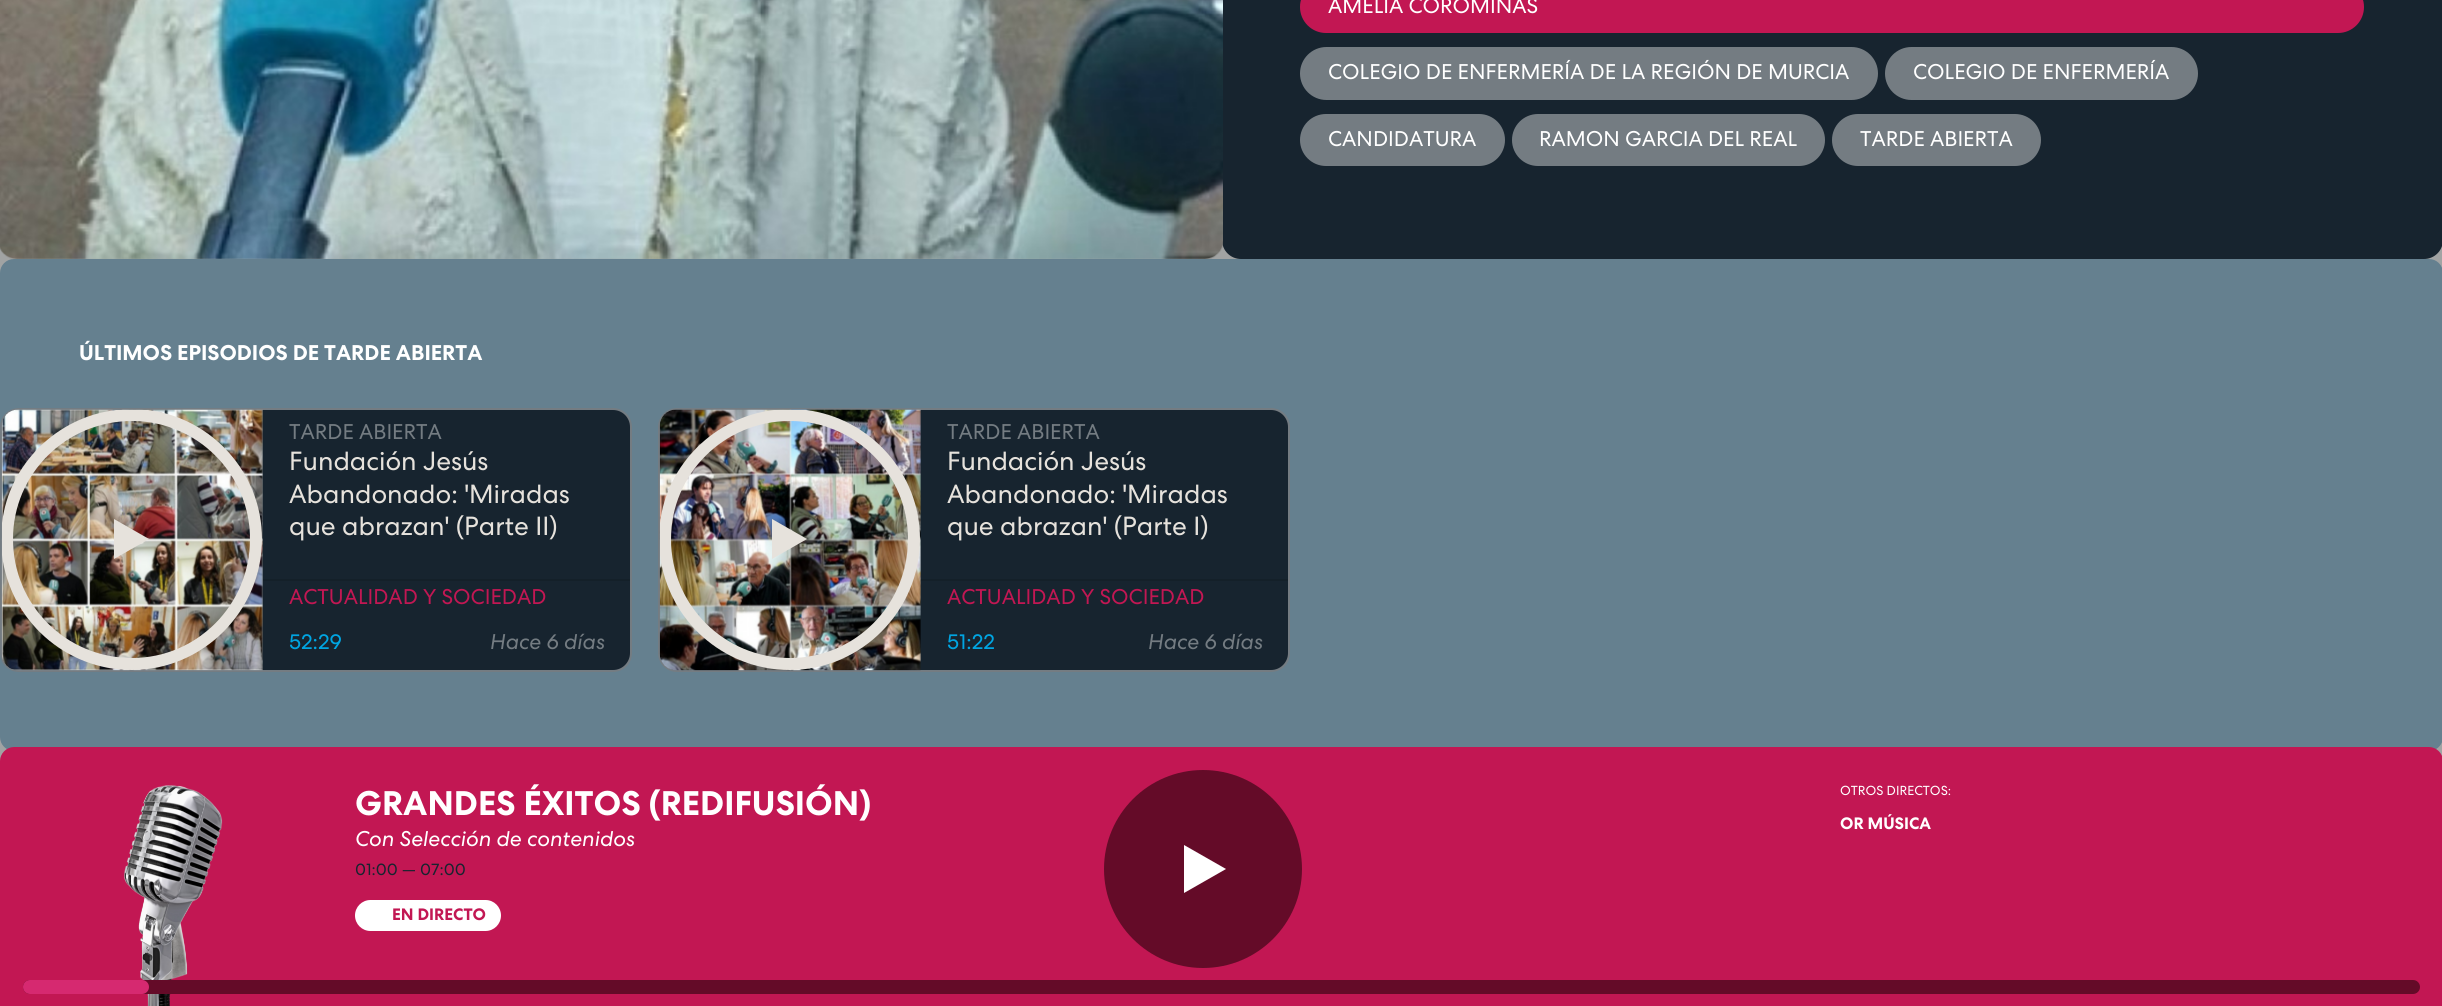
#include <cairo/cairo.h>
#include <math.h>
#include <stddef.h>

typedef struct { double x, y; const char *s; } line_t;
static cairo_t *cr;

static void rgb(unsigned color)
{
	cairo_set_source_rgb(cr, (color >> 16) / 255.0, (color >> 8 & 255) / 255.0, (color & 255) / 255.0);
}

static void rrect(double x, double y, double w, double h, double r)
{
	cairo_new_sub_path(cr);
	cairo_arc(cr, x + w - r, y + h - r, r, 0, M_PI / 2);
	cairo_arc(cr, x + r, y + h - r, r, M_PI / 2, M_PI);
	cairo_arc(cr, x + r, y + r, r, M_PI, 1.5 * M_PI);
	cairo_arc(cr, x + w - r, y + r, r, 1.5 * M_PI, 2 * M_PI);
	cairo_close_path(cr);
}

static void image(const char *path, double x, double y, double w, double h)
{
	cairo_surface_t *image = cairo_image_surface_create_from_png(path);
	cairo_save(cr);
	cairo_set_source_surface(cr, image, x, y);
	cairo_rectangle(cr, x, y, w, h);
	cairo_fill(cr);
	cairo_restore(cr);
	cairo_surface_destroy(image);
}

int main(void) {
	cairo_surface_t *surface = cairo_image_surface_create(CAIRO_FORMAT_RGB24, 2442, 1006);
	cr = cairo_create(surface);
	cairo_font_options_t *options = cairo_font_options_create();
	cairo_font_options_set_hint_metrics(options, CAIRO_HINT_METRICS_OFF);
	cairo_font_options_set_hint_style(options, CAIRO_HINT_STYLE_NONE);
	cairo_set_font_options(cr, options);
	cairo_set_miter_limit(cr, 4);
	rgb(0xa1a3a3);
	cairo_paint(cr);
	rgb(0x17242f);
	rrect(1222, -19, 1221, 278, 19);
	cairo_fill(cr);
	image("img/1.png", 0, 0, 1223, 259);
	rgb(0xc21753);
	rrect(1300, -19, 1064, 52, 26);
	cairo_fill(cr);
	rgb(0x747c82);
	rrect(1300, 47, 578, 53, 26.5);
	cairo_fill(cr);
	rrect(1885, 47, 313, 53, 26.5);
	cairo_fill(cr);
	rrect(1300, 114, 205, 52, 26);
	cairo_fill(cr);
	rrect(1512, 114, 313, 52, 26);
	cairo_fill(cr);
	rrect(1832, 114, 209, 52, 26);
	cairo_fill(cr);
	rgb(0x65808f);
	rrect(0, 259, 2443, 492, 14);
	cairo_fill(cr);
	rgb(0x17242f);
	rrect(1, 409, 630, 262, 18);
	cairo_fill_preserve(cr);
	rgb(0x747c82);
	cairo_stroke(cr);
	image("img/2.png", 1, 409, 262, 262);
	rgb(0xe6e2dc);
	cairo_set_fill_rule(cr, CAIRO_FILL_RULE_EVEN_ODD);
	cairo_new_path(cr);
	cairo_move_to(cr, 132, 670);
	cairo_curve_to(cr, 203, 670, 262, 611, 262, 539);
	cairo_curve_to(cr, 262, 473, 212, 418, 148, 410);
	cairo_line_to(cr, 116, 410);
	cairo_curve_to(cr, 57, 417, 9, 464, 2, 523);
	cairo_line_to(cr, 2, 555);
	cairo_curve_to(cr, 10, 620, 65, 670, 132, 670);
	cairo_close_path(cr);
	cairo_move_to(cr, 132, 421);
	cairo_curve_to(cr, 197, 421, 250, 474, 250, 539);
	cairo_curve_to(cr, 250, 605, 197, 658, 132, 658);
	cairo_curve_to(cr, 66, 658, 13, 605, 13, 539);
	cairo_curve_to(cr, 13, 474, 66, 421, 132, 421);
	cairo_close_path(cr);
	cairo_fill(cr);
	cairo_set_fill_rule(cr, CAIRO_FILL_RULE_WINDING);
	cairo_new_path(cr);
	cairo_move_to(cr, 114, 519);
	cairo_line_to(cr, 149, 539);
	cairo_line_to(cr, 114, 559);
	cairo_line_to(cr, 114, 519);
	cairo_fill(cr);
	rgb(0x142029);
	cairo_rectangle(cr, 263, 579, 367, 2);
	cairo_fill(cr);
	rgb(0x17242f);
	rrect(659, 409, 630, 262, 18);
	cairo_fill_preserve(cr);
	rgb(0x747c82);
	cairo_stroke(cr);
	image("img/3.png", 659, 409, 262, 262);
	rgb(0xe6e2dc);
	cairo_set_fill_rule(cr, CAIRO_FILL_RULE_EVEN_ODD);
	cairo_new_path(cr);
	cairo_move_to(cr, 790, 670);
	cairo_curve_to(cr, 861, 670, 920, 611, 920, 539);
	cairo_curve_to(cr, 920, 473, 870, 418, 806, 410);
	cairo_line_to(cr, 774, 410);
	cairo_curve_to(cr, 715, 417, 667, 464, 660, 523);
	cairo_line_to(cr, 660, 555);
	cairo_curve_to(cr, 668, 620, 723, 670, 790, 670);
	cairo_close_path(cr);
	cairo_move_to(cr, 790, 421);
	cairo_curve_to(cr, 855, 421, 908, 474, 908, 539);
	cairo_curve_to(cr, 908, 605, 855, 658, 790, 658);
	cairo_curve_to(cr, 724, 658, 671, 605, 671, 539);
	cairo_curve_to(cr, 671, 474, 724, 421, 790, 421);
	cairo_close_path(cr);
	cairo_fill(cr);
	cairo_set_fill_rule(cr, CAIRO_FILL_RULE_WINDING);
	cairo_new_path(cr);
	cairo_move_to(cr, 772, 519);
	cairo_line_to(cr, 807, 539);
	cairo_line_to(cr, 772, 559);
	cairo_line_to(cr, 772, 519);
	cairo_fill(cr);
	rgb(0x142029);
	cairo_rectangle(cr, 921, 579, 367, 2);
	cairo_fill(cr);
	rgb(0xc21753);
	cairo_new_path(cr);
	cairo_move_to(cr, 14, 747);
	cairo_line_to(cr, 2429, 747);
	cairo_curve_to(cr, 2436.5, 747, 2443, 753.5, 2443, 761);
	cairo_line_to(cr, 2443, 1006);
	cairo_line_to(cr, 0, 1006);
	cairo_line_to(cr, 0, 761);
	cairo_curve_to(cr, 0, 753.5, 6.5, 747, 14, 747);
	cairo_close_path(cr);
	cairo_fill(cr);
	image("img/4.png", 124, 785, 99, 221);
	rgb(0xffffff);
	rrect(355, 900, 146, 31, 15.5);
	cairo_fill(cr);
	rgb(0x640b28);
	cairo_arc(cr, 1203, 869, 99, 0, 2 * M_PI);
	cairo_fill(cr);
	rgb(0xffffff);
	cairo_new_path(cr);
	cairo_move_to(cr, 1184, 845);
	cairo_line_to(cr, 1226, 869);
	cairo_line_to(cr, 1184, 893);
	cairo_close_path(cr);
	cairo_fill(cr);
	rgb(0x640b28);
	rrect(23, 980, 2397, 14, 7);
	cairo_fill(cr);
	rgb(0xd62970);
	rrect(23, 980, 126, 14, 7);
	cairo_fill(cr);
	cairo_select_font_face(cr, "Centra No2", CAIRO_FONT_SLANT_NORMAL, CAIRO_FONT_WEIGHT_NORMAL);
	cairo_set_font_size(cr, 21.3);
	rgb(0xffffff);
	{
		static const line_t items[] = {
			{1328, 13, "AMELIA COROMINAS"},
			{1328, 79, "COLEGIO DE ENFERMERÍA DE LA REGIÓN DE MURCIA"},
			{1913, 79, "COLEGIO DE ENFERMERÍA"},
			{1328, 146, "CANDIDATURA"},
			{1539, 146, "RAMON GARCIA DEL REAL"},
			{1860, 146, "TARDE ABIERTA"},
		};
		for (size_t i = 0; i < sizeof items / sizeof *items; i++) {
			cairo_move_to(cr, items[i].x, items[i].y);
			cairo_show_text(cr, items[i].s);
		}
	}
	cairo_select_font_face(cr, "Centra No2", CAIRO_FONT_SLANT_NORMAL, CAIRO_FONT_WEIGHT_BOLD);
	cairo_move_to(cr, 79, 360);
	cairo_show_text(cr, "ÚLTIMOS EPISODIOS DE TARDE ABIERTA");
	cairo_select_font_face(cr, "Centra No2", CAIRO_FONT_SLANT_NORMAL, CAIRO_FONT_WEIGHT_NORMAL);
	rgb(0x747c82);
	cairo_move_to(cr, 289, 439);
	cairo_show_text(cr, "TARDE ABIERTA");
	cairo_set_font_size(cr, 26.25);
	rgb(0xe6e2dc);
	{
		static const line_t items[] = {
			{289, 470, "Fundación Jesús"},
			{289, 503, "Abandonado: 'Miradas"},
			{289, 535, "que abrazan' (Parte II)"},
		};
		for (size_t i = 0; i < sizeof items / sizeof *items; i++) {
			cairo_move_to(cr, items[i].x, items[i].y);
			cairo_show_text(cr, items[i].s);
		}
	}
	cairo_set_font_size(cr, 21.3);
	rgb(0xc21753);
	cairo_move_to(cr, 289, 604);
	cairo_show_text(cr, "ACTUALIDAD Y SOCIEDAD");
	rgb(0x00a5e2);
	cairo_move_to(cr, 289, 649);
	cairo_show_text(cr, "52:29");
	cairo_select_font_face(cr, "Centra No2", CAIRO_FONT_SLANT_ITALIC, CAIRO_FONT_WEIGHT_NORMAL);
	rgb(0x747c82);
	cairo_move_to(cr, 490, 649);
	cairo_show_text(cr, "Hace 6 días");
	cairo_select_font_face(cr, "Centra No2", CAIRO_FONT_SLANT_NORMAL, CAIRO_FONT_WEIGHT_NORMAL);
	cairo_move_to(cr, 947, 439);
	cairo_show_text(cr, "TARDE ABIERTA");
	cairo_set_font_size(cr, 26.25);
	rgb(0xe6e2dc);
	{
		static const line_t items[] = {
			{947, 470, "Fundación Jesús"},
			{947, 503, "Abandonado: 'Miradas"},
			{947, 535, "que abrazan' (Parte I)"},
		};
		for (size_t i = 0; i < sizeof items / sizeof *items; i++) {
			cairo_move_to(cr, items[i].x, items[i].y);
			cairo_show_text(cr, items[i].s);
		}
	}
	cairo_set_font_size(cr, 21.3);
	rgb(0xc21753);
	cairo_move_to(cr, 947, 604);
	cairo_show_text(cr, "ACTUALIDAD Y SOCIEDAD");
	rgb(0x00a5e2);
	cairo_move_to(cr, 947, 649);
	cairo_show_text(cr, "51:22");
	cairo_select_font_face(cr, "Centra No2", CAIRO_FONT_SLANT_ITALIC, CAIRO_FONT_WEIGHT_NORMAL);
	rgb(0x747c82);
	cairo_move_to(cr, 1148, 649);
	cairo_show_text(cr, "Hace 6 días");
	cairo_select_font_face(cr, "Centra No2", CAIRO_FONT_SLANT_NORMAL, CAIRO_FONT_WEIGHT_BOLD);
	cairo_set_font_size(cr, 34.1);
	rgb(0xffffff);
	cairo_move_to(cr, 355, 815);
	cairo_show_text(cr, "GRANDES ÉXITOS (REDIFUSIÓN)");
	cairo_select_font_face(cr, "Centra No2", CAIRO_FONT_SLANT_ITALIC, CAIRO_FONT_WEIGHT_NORMAL);
	cairo_set_font_size(cr, 21.3);
	cairo_move_to(cr, 355, 846);
	cairo_show_text(cr, "Con Selección de contenidos");
	cairo_select_font_face(cr, "Centra No2", CAIRO_FONT_SLANT_NORMAL, CAIRO_FONT_WEIGHT_NORMAL);
	cairo_set_font_size(cr, 16.5);
	rgb(0x17242f);
	cairo_move_to(cr, 355, 875);
	cairo_show_text(cr, "01:00 — 07:00");
	cairo_select_font_face(cr, "Centra No2", CAIRO_FONT_SLANT_NORMAL, CAIRO_FONT_WEIGHT_BOLD);
	rgb(0xc21753);
	cairo_move_to(cr, 392, 920);
	cairo_show_text(cr, "EN DIRECTO");
	cairo_select_font_face(cr, "Centra No2", CAIRO_FONT_SLANT_NORMAL, CAIRO_FONT_WEIGHT_NORMAL);
	cairo_set_font_size(cr, 13.1);
	rgb(0xffffff);
	cairo_move_to(cr, 1840, 795);
	cairo_show_text(cr, "OTROS DIRECTOS:");
	cairo_select_font_face(cr, "Centra No2", CAIRO_FONT_SLANT_NORMAL, CAIRO_FONT_WEIGHT_BOLD);
	cairo_set_font_size(cr, 16.5);
	cairo_move_to(cr, 1840, 829);
	cairo_show_text(cr, "OR MÚSICA");
	cairo_surface_write_to_png(surface, "page.png");
	cairo_font_options_destroy(options);
	cairo_destroy(cr);
	cairo_surface_destroy(surface);
	return 0;
}
